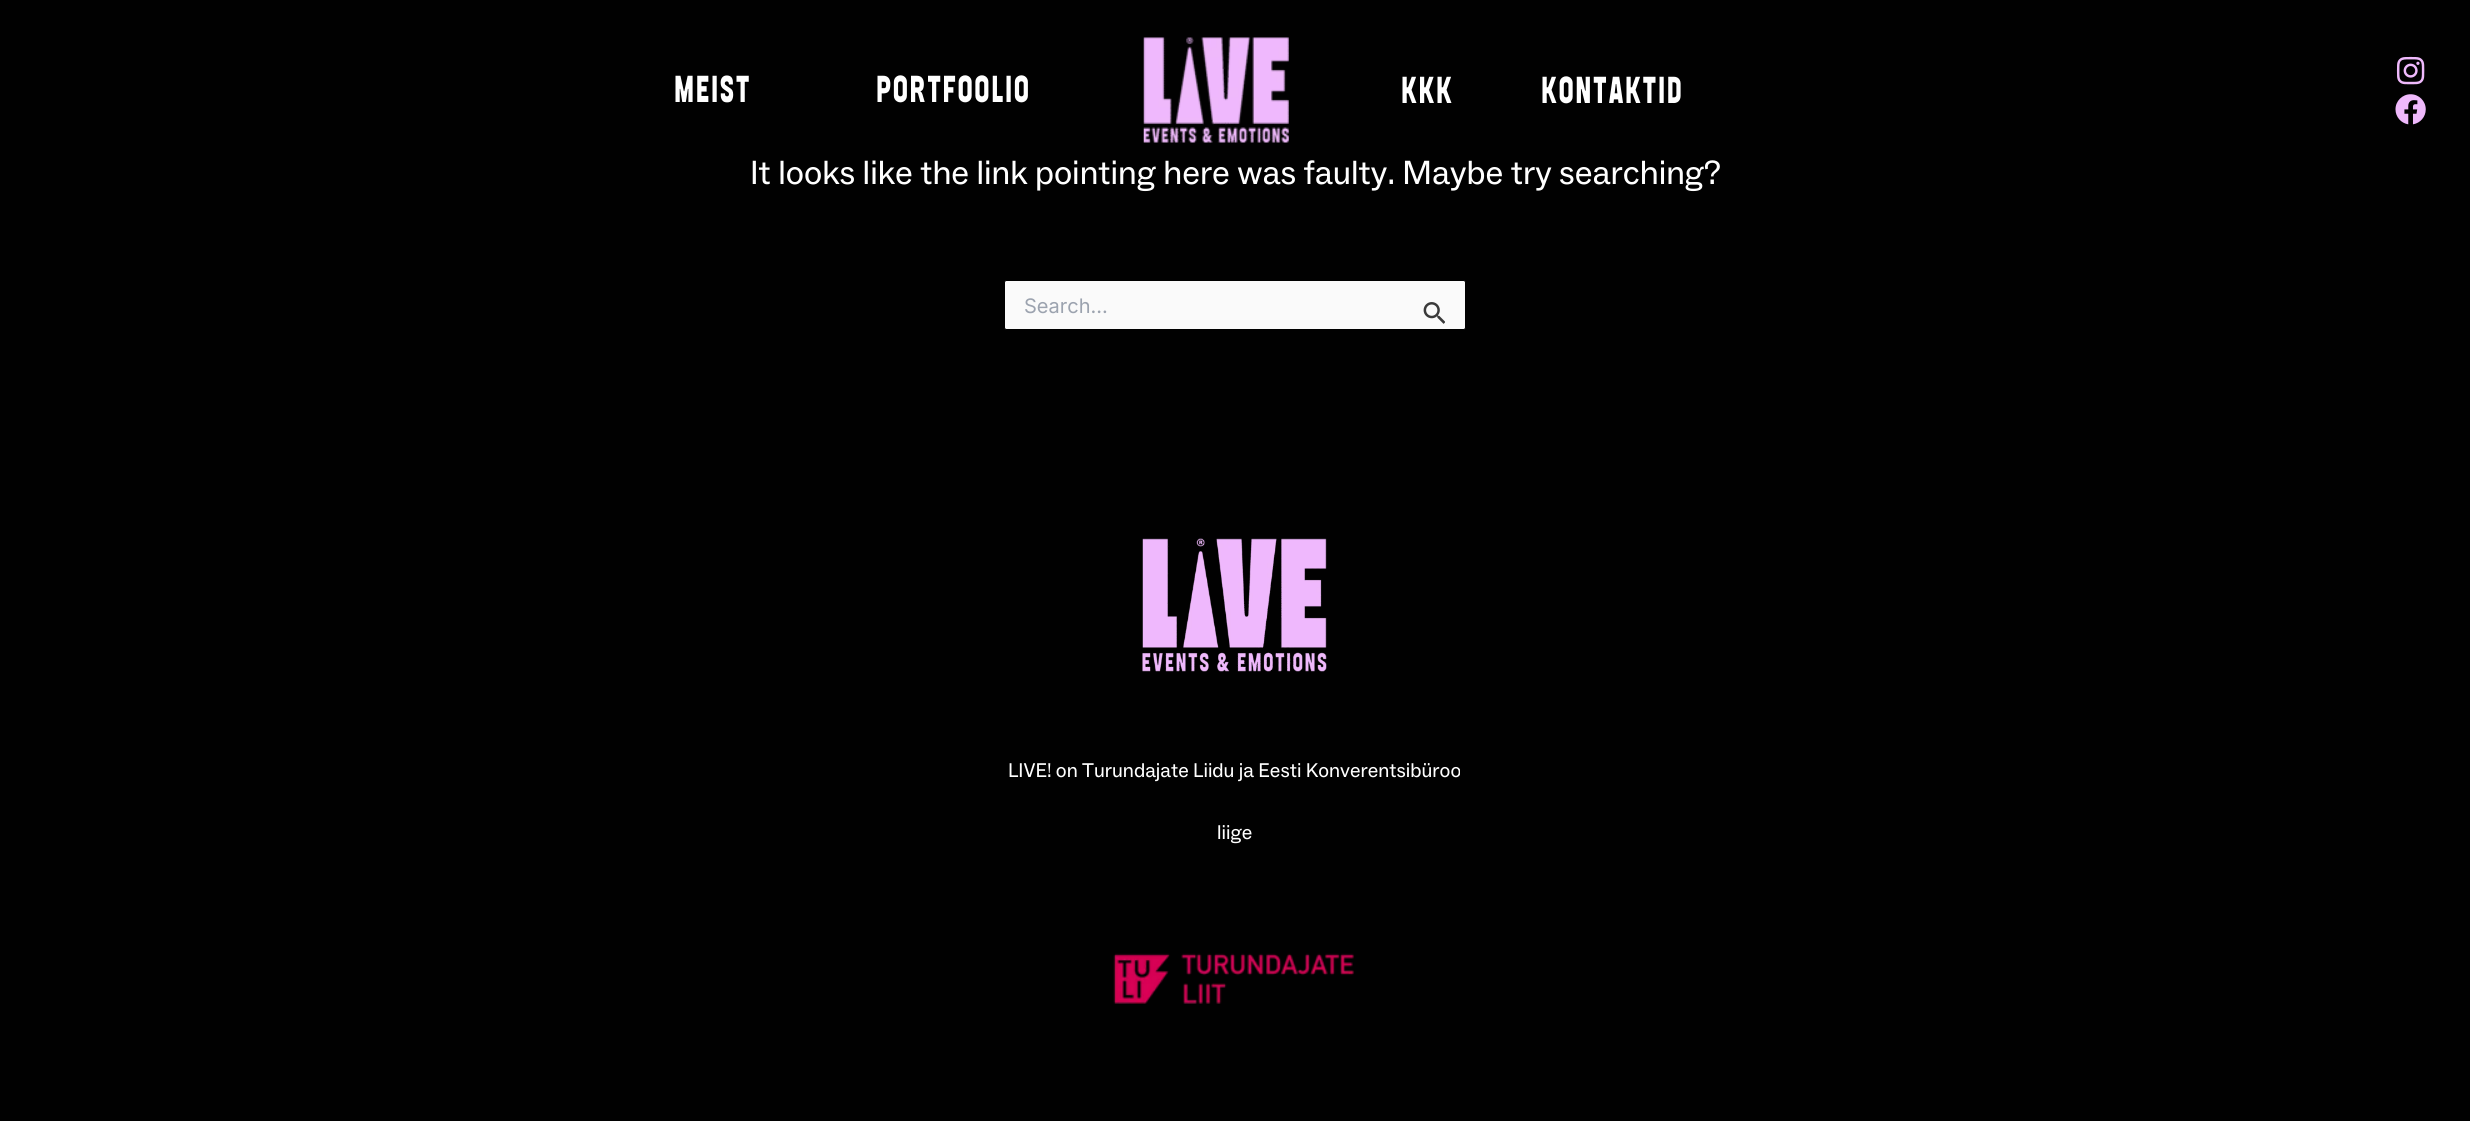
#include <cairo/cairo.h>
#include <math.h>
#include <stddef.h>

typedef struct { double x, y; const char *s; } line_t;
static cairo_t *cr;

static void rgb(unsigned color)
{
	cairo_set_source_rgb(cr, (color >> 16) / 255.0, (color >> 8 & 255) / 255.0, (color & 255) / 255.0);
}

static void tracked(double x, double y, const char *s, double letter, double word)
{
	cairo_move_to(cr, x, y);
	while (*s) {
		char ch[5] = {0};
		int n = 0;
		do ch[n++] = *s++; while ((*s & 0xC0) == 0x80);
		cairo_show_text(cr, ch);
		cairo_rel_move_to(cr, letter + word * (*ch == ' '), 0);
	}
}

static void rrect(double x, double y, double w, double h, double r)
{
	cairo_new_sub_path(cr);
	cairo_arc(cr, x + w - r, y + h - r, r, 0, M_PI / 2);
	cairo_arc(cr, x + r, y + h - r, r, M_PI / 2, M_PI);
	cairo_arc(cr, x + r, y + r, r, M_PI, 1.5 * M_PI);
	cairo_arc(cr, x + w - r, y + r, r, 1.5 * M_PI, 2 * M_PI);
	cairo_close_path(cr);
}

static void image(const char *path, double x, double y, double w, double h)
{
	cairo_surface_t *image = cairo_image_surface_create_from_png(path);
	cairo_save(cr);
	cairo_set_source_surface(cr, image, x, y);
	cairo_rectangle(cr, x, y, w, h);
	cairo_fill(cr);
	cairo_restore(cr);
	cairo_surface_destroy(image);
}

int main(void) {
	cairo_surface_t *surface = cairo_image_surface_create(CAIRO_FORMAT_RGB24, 2470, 1121);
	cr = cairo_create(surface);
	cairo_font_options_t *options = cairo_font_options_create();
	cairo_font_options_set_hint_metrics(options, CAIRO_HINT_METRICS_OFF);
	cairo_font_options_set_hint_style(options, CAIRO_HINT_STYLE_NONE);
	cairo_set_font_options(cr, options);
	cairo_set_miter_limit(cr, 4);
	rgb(0x010101);
	cairo_paint(cr);
	image("img/1.png", 1143, 37, 146, 106);
	image("img/2.png", 2396, 56, 29, 29);
	image("img/3.png", 2395, 94, 31, 31);
	rgb(0xfafafa);
	rrect(1004.5, 280.5, 461, 49, 2);
	cairo_fill_preserve(cr);
	rgb(0x000000);
	cairo_set_line_width(cr, 1);
	cairo_stroke(cr);
	image("img/4.png", 1423, 302, 22, 22);
	image("img/5.png", 1142, 538, 185, 134);
	image("img/6.png", 1113, 953, 242, 51);
	cairo_select_font_face(cr, "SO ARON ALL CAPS", CAIRO_FONT_SLANT_NORMAL, CAIRO_FONT_WEIGHT_NORMAL);
	cairo_set_font_size(cr, 37.5);
	rgb(0xffffff);
	{
		static const line_t items[] = {
			{674, 102, "MEIST"},
			{876, 102, "PORTFOOLIO"},
			{1401, 103, "KKK"},
			{1541, 103, "KONTAKTID"},
		};
		for (size_t i = 0; i < sizeof items / sizeof *items; i++) {
			tracked(items[i].x, items[i].y, items[i].s, 1.6, 0);
		}
	}
	cairo_select_font_face(cr, "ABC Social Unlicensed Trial", CAIRO_FONT_SLANT_NORMAL, CAIRO_FONT_WEIGHT_NORMAL);
	cairo_set_font_size(cr, 33.75);
	cairo_move_to(cr, 750, 184);
	cairo_show_text(cr, "It looks like the link pointing here was faulty. Maybe try searching?");
	cairo_select_font_face(cr, "Inter", CAIRO_FONT_SLANT_NORMAL, CAIRO_FONT_WEIGHT_NORMAL);
	cairo_set_font_size(cr, 20);
	rgb(0x9ca3af);
	cairo_move_to(cr, 1024, 313);
	cairo_show_text(cr, "Search...");
	cairo_select_font_face(cr, "ABC Social Unlicensed Trial", CAIRO_FONT_SLANT_NORMAL, CAIRO_FONT_WEIGHT_NORMAL);
	rgb(0xffffff);
	cairo_move_to(cr, 1008, 777);
	cairo_show_text(cr, "LIVE! on Turundajate Liidu ja Eesti Konverentsibüroo");
	cairo_move_to(cr, 1217, 839);
	cairo_show_text(cr, "liige");
	cairo_surface_write_to_png(surface, "page.png");
	cairo_font_options_destroy(options);
	cairo_destroy(cr);
	cairo_surface_destroy(surface);
	return 0;
}
